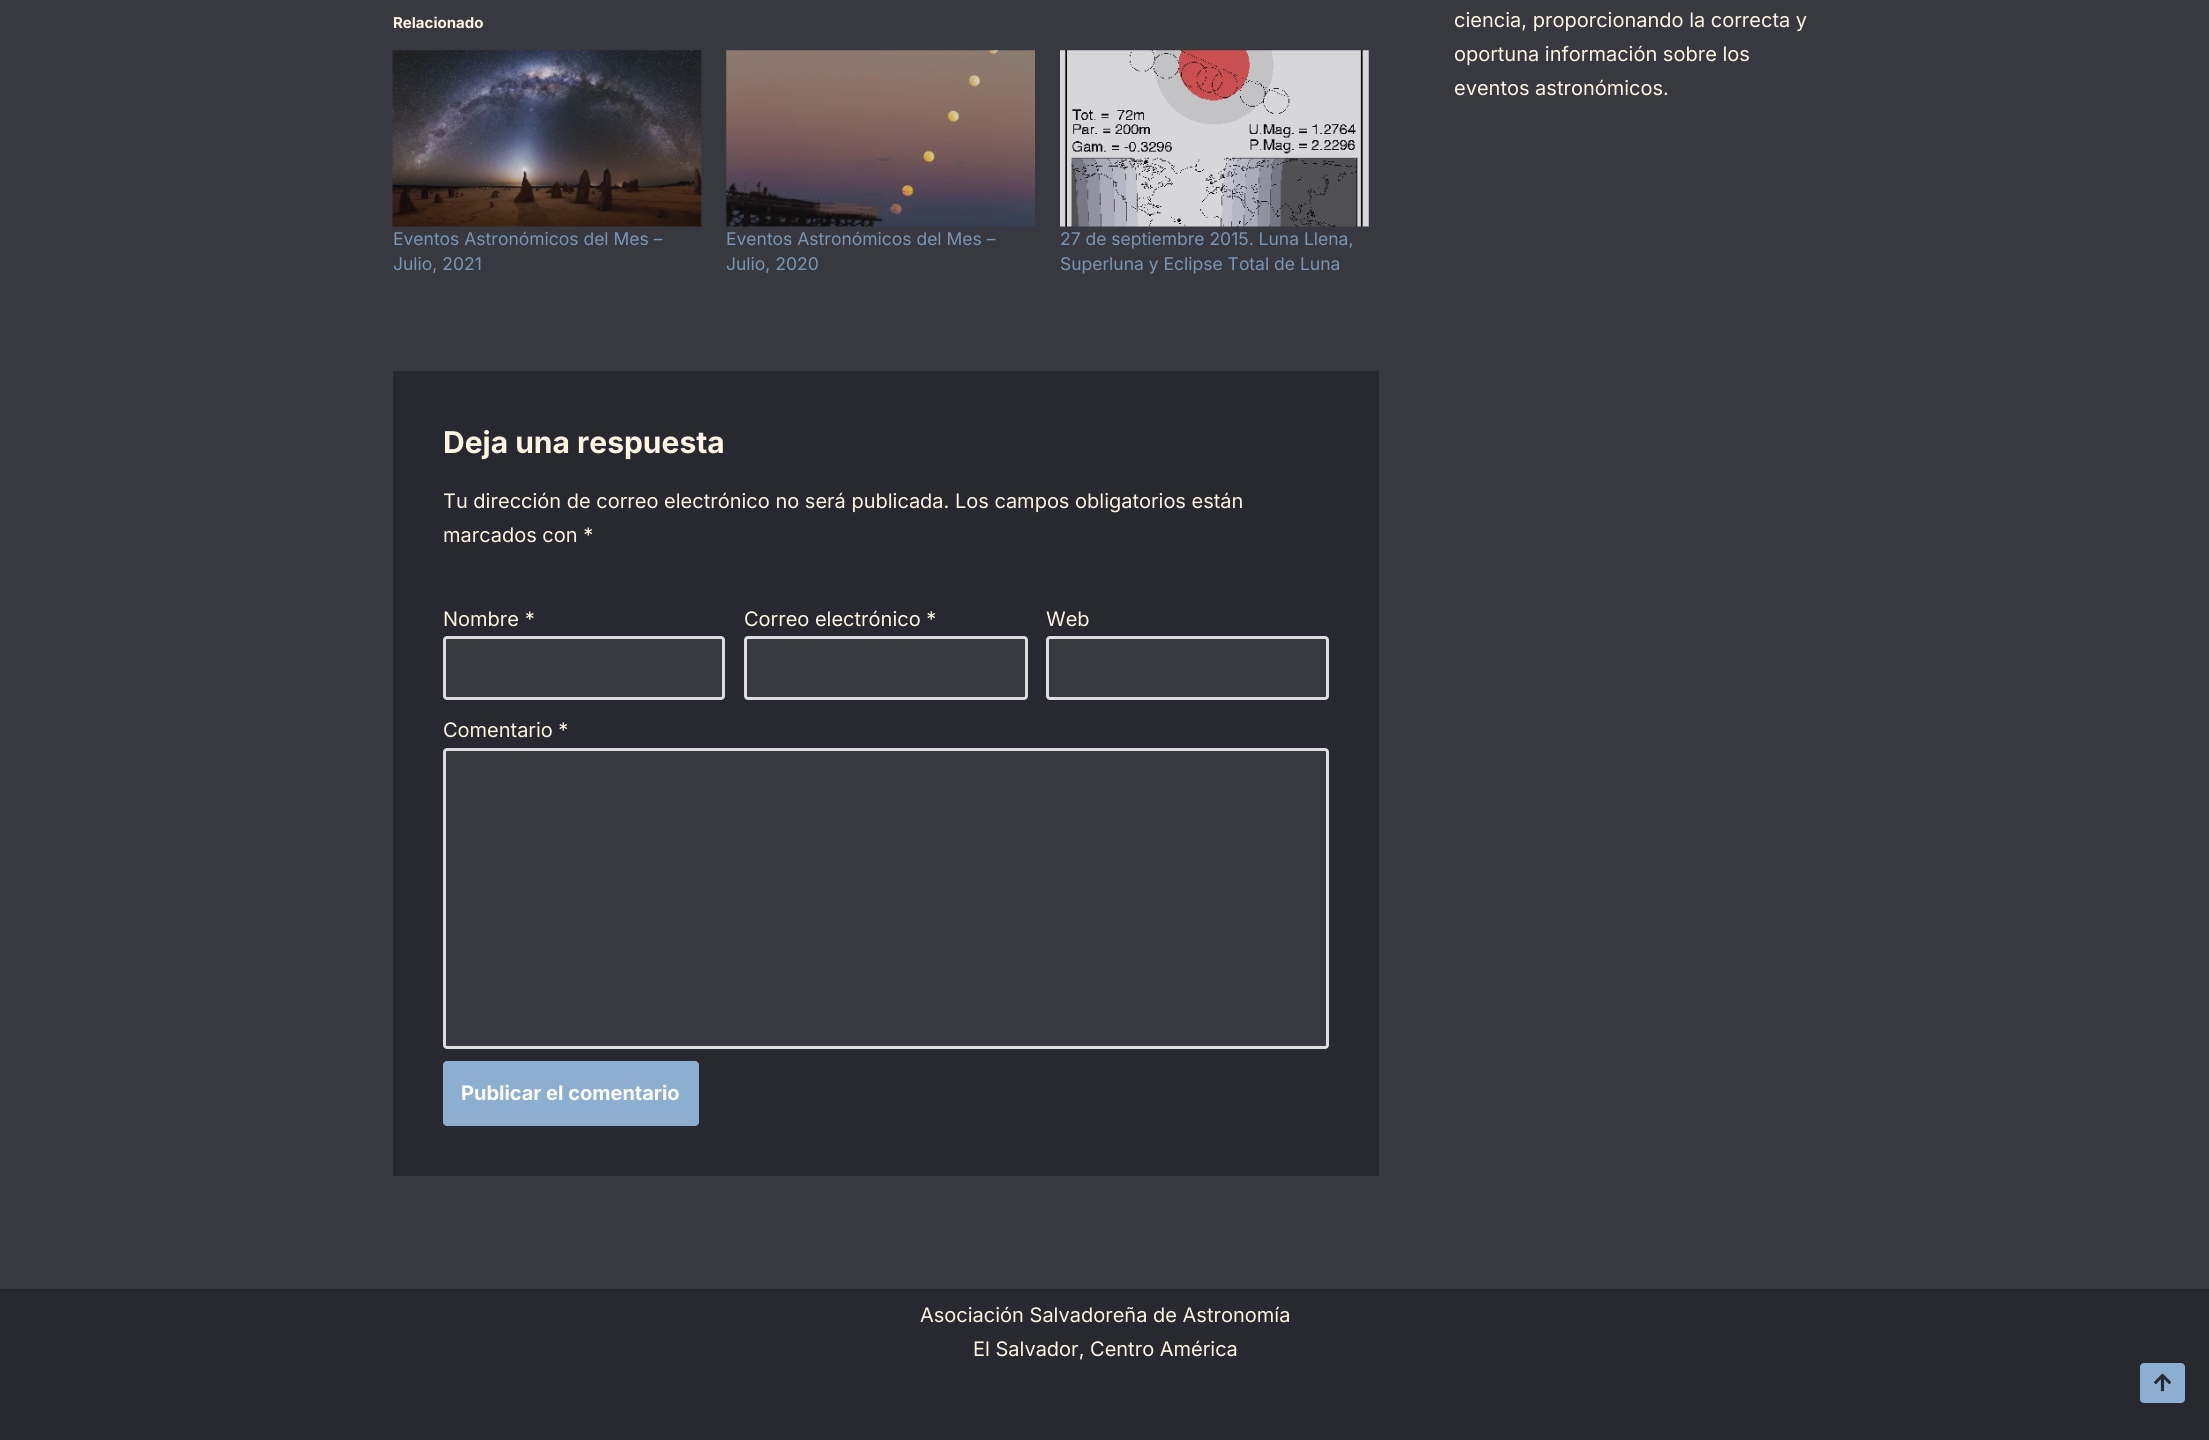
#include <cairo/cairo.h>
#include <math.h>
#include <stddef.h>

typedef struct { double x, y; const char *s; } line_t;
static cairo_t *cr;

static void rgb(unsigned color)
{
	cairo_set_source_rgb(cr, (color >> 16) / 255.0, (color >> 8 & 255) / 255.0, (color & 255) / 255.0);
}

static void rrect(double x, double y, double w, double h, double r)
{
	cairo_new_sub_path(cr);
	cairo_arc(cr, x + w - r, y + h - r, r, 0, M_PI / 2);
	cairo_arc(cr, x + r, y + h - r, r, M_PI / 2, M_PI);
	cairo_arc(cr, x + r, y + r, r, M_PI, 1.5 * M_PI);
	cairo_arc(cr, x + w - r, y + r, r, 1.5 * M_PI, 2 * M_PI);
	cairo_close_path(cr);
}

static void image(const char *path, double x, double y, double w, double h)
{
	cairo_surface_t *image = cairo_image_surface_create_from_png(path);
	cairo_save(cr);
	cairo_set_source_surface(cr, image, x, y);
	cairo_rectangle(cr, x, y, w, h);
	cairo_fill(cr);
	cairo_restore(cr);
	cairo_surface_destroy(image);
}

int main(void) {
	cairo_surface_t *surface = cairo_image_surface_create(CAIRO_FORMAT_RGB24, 2209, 1440);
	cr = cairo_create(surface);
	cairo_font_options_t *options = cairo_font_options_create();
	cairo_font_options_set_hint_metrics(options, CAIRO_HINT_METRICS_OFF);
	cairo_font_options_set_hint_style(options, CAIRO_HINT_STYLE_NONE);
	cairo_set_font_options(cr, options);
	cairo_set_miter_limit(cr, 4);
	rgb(0x383840);
	cairo_paint(cr);
	image("img/1.png", 392, 50, 310, 177);
	image("img/2.png", 726, 50, 309, 177);
	image("img/3.png", 1060, 50, 309, 177);
	rgb(0x282830);
	cairo_rectangle(cr, 393, 371, 986, 805);
	cairo_fill(cr);
	rgb(0x383840);
	rrect(444.5, 637.5, 279, 61, 2.5);
	cairo_fill_preserve(cr);
	rgb(0xdddddd);
	cairo_set_line_width(cr, 3);
	cairo_stroke(cr);
	rgb(0x383840);
	rrect(745.5, 637.5, 281, 61, 2.5);
	cairo_fill_preserve(cr);
	rgb(0xdddddd);
	cairo_stroke(cr);
	rgb(0x383840);
	rrect(1047.5, 637.5, 280, 61, 2.5);
	cairo_fill_preserve(cr);
	rgb(0xdddddd);
	cairo_stroke(cr);
	rgb(0x383840);
	rrect(444.5, 749.5, 883, 298, 2.5);
	cairo_fill_preserve(cr);
	rgb(0xdddddd);
	cairo_stroke(cr);
	rgb(0x8baed1);
	rrect(443, 1061, 256, 65, 4);
	cairo_fill(cr);
	rgb(0x282830);
	cairo_rectangle(cr, 0, 1289, 2209, 151);
	cairo_fill(cr);
	rgb(0x8baed1);
	rrect(2140, 1363, 45, 40, 4);
	cairo_fill(cr);
	image("img/4.png", 2154, 1373, 17, 19);
	cairo_select_font_face(cr, "Inter", CAIRO_FONT_SLANT_NORMAL, CAIRO_FONT_WEIGHT_BOLD);
	cairo_set_font_size(cr, 15);
	rgb(0xfff5e2);
	cairo_move_to(cr, 393, 28);
	cairo_show_text(cr, "Relacionado");
	cairo_select_font_face(cr, "Inter", CAIRO_FONT_SLANT_NORMAL, CAIRO_FONT_WEIGHT_NORMAL);
	cairo_set_font_size(cr, 17.5);
	rgb(0x7a96b4);
	{
		static const line_t items[] = {
			{393, 245, "Eventos Astronómicos del Mes –"},
			{393, 270, "Julio, 2021"},
			{726, 245, "Eventos Astronómicos del Mes –"},
			{726, 270, "Julio, 2020"},
			{1060, 245, "27 de septiembre 2015. Luna Llena,"},
			{1060, 270, "Superluna y Eclipse Total de Luna"},
		};
		for (size_t i = 0; i < sizeof items / sizeof *items; i++) {
			cairo_move_to(cr, items[i].x, items[i].y);
			cairo_show_text(cr, items[i].s);
		}
	}
	cairo_select_font_face(cr, "Inter", CAIRO_FONT_SLANT_NORMAL, CAIRO_FONT_WEIGHT_BOLD);
	cairo_set_font_size(cr, 30);
	rgb(0xfff5e2);
	cairo_move_to(cr, 443, 453);
	cairo_show_text(cr, "Deja una respuesta");
	cairo_select_font_face(cr, "Inter", CAIRO_FONT_SLANT_NORMAL, CAIRO_FONT_WEIGHT_NORMAL);
	cairo_set_font_size(cr, 20);
	{
		static const line_t items[] = {
			{443, 508, "Tu dirección de correo electrónico no será publicada. Los campos obligatorios están"},
			{443, 542, "marcados con *"},
			{443, 626, "Nombre *"},
			{744, 626, "Correo electrónico *"},
			{1046, 626, "Web"},
			{443, 737, "Comentario *"},
		};
		for (size_t i = 0; i < sizeof items / sizeof *items; i++) {
			cairo_move_to(cr, items[i].x, items[i].y);
			cairo_show_text(cr, items[i].s);
		}
	}
	cairo_select_font_face(cr, "Inter", CAIRO_FONT_SLANT_NORMAL, CAIRO_FONT_WEIGHT_BOLD);
	rgb(0xffffff);
	cairo_move_to(cr, 461, 1100);
	cairo_show_text(cr, "Publicar el comentario");
	cairo_select_font_face(cr, "Inter", CAIRO_FONT_SLANT_NORMAL, CAIRO_FONT_WEIGHT_NORMAL);
	rgb(0xfff5e2);
	{
		static const line_t items[] = {
			{1454, 27, "ciencia, proporcionando la correcta y"},
			{1454, 61, "oportuna información sobre los"},
			{1454, 95, "eventos astronómicos."},
			{920, 1322, "Asociación Salvadoreña de Astronomía"},
			{973, 1356, "El Salvador, Centro América"},
		};
		for (size_t i = 0; i < sizeof items / sizeof *items; i++) {
			cairo_move_to(cr, items[i].x, items[i].y);
			cairo_show_text(cr, items[i].s);
		}
	}
	cairo_surface_write_to_png(surface, "page.png");
	cairo_font_options_destroy(options);
	cairo_destroy(cr);
	cairo_surface_destroy(surface);
	return 0;
}
